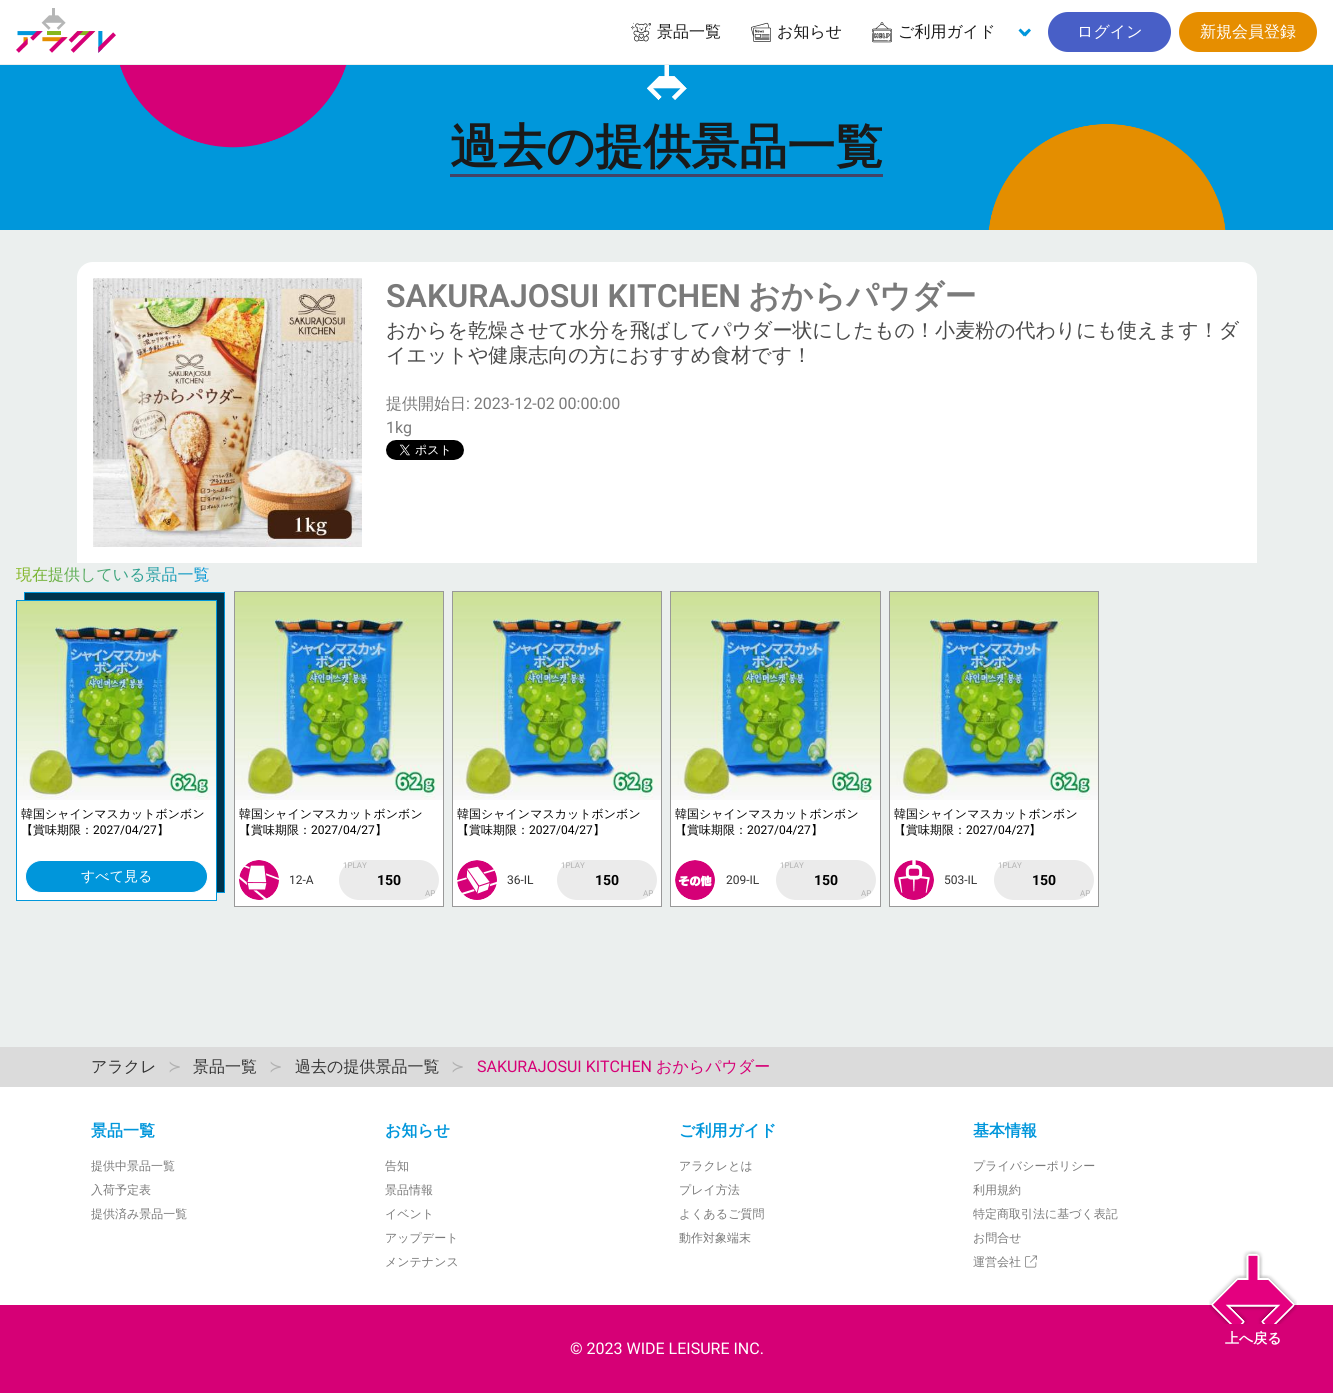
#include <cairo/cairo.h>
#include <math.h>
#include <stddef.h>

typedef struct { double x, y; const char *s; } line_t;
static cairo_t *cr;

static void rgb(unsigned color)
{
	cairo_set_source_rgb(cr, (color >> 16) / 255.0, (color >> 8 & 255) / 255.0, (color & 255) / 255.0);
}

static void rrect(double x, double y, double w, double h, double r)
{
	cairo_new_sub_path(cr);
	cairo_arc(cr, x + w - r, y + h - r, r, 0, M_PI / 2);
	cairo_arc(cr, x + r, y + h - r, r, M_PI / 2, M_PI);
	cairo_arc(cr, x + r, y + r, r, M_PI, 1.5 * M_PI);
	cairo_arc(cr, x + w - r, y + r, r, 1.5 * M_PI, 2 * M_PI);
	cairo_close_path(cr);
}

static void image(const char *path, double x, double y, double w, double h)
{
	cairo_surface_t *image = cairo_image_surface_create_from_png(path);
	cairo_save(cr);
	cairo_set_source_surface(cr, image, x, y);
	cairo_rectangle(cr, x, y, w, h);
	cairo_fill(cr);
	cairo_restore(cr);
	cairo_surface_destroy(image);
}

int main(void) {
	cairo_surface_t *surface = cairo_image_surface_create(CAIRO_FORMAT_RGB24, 1333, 1393);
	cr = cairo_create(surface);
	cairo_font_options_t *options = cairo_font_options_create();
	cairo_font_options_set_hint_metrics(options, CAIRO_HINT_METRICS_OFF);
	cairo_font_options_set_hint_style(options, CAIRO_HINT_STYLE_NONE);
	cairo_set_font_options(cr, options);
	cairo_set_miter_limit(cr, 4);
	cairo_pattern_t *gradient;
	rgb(0xebefee);
	cairo_paint(cr);
	rgb(0xffffff);
	cairo_rectangle(cr, 0, 0, 1333, 64);
	cairo_fill(cr);
	image("img/1.png", 16, 8, 100, 45);
	image("img/2.png", 631, 22, 20, 20);
	image("img/3.png", 751, 22, 20, 20);
	image("img/4.png", 872, 22, 20, 21);
	rgb(0x0096db);
	cairo_new_path(cr);
	cairo_move_to(cr, 1023, 34);
	cairo_line_to(cr, 1029, 28.5);
	cairo_line_to(cr, 1031, 30.5);
	cairo_line_to(cr, 1025.5, 36.5);
	cairo_close_path(cr);
	cairo_fill(cr);
	cairo_new_path(cr);
	cairo_move_to(cr, 1018.5, 30.5);
	cairo_line_to(cr, 1020.5, 28.5);
	cairo_line_to(cr, 1026, 34);
	cairo_line_to(cr, 1024, 36.5);
	cairo_close_path(cr);
	cairo_fill(cr);
	rgb(0x485fc7);
	rrect(1048, 12, 123, 40, 20);
	cairo_fill(cr);
	rgb(0xe68e00);
	rrect(1179, 12, 138, 40, 20);
	cairo_fill(cr);
	rgb(0x0097db);
	cairo_rectangle(cr, 0, 65, 1333, 165);
	cairo_fill(cr);
	image("img/5.png", 119, 65, 1107, 165);
	rgb(0x444466);
	cairo_rectangle(cr, 450, 174, 433, 3);
	cairo_fill(cr);
	rgb(0xffffff);
	cairo_new_path(cr);
	cairo_move_to(cr, 93, 262);
	cairo_line_to(cr, 1241, 262);
	cairo_curve_to(cr, 1250, 262, 1257, 269, 1257, 278);
	cairo_line_to(cr, 1257, 563);
	cairo_line_to(cr, 77, 563);
	cairo_line_to(cr, 77, 278);
	cairo_curve_to(cr, 77, 269, 84, 262, 93, 262);
	cairo_close_path(cr);
	cairo_fill(cr);
	image("img/6.png", 93, 278, 269, 269);
	image("img/7.png", 386, 440, 78, 20);
	rgb(0x00344c);
	cairo_rectangle(cr, 24.5, 592.5, 200, 300);
	cairo_fill_preserve(cr);
	rgb(0x0097db);
	cairo_set_line_width(cr, 1);
	cairo_stroke(cr);
	rgb(0xffffff);
	cairo_rectangle(cr, 17, 800, 199, 100);
	cairo_fill(cr);
	cairo_rectangle(cr, 16.5, 600.5, 200, 300);
	rgb(0x0097db);
	cairo_stroke(cr);
	image("img/8.png", 17, 601, 199, 199);
	rgb(0x0096db);
	rrect(25.5, 860.5, 182, 32, 16);
	cairo_fill_preserve(cr);
	rgb(0xffffff);
	cairo_stroke(cr);
	cairo_rectangle(cr, 235, 800, 208, 106);
	cairo_fill(cr);
	cairo_rectangle(cr, 234.5, 591.5, 209, 315);
	rgb(0x999999);
	cairo_stroke(cr);
	image("img/9.png", 235, 592, 208, 208);
	image("img/10.png", 239, 860, 40, 40);
	rgb(0xebebeb);
	rrect(339, 860, 100, 40, 20);
	cairo_fill(cr);
	rgb(0xffffff);
	cairo_rectangle(cr, 453, 800, 208, 106);
	cairo_fill(cr);
	cairo_rectangle(cr, 452.5, 591.5, 209, 315);
	rgb(0x999999);
	cairo_stroke(cr);
	image("img/11.png", 453, 592, 208, 208);
	image("img/12.png", 457, 860, 40, 40);
	rgb(0xebebeb);
	rrect(557, 860, 100, 40, 20);
	cairo_fill(cr);
	rgb(0xffffff);
	cairo_rectangle(cr, 671, 800, 209, 106);
	cairo_fill(cr);
	cairo_rectangle(cr, 670.5, 591.5, 210, 315);
	rgb(0x999999);
	cairo_stroke(cr);
	image("img/13.png", 671, 592, 209, 208);
	image("img/14.png", 675, 860, 40, 40);
	rgb(0xebebeb);
	rrect(776, 860, 100, 40, 20);
	cairo_fill(cr);
	rgb(0xffffff);
	cairo_rectangle(cr, 890, 800, 208, 106);
	cairo_fill(cr);
	cairo_rectangle(cr, 889.5, 591.5, 209, 315);
	rgb(0x999999);
	cairo_stroke(cr);
	image("img/15.png", 890, 592, 208, 208);
	image("img/16.png", 894, 860, 40, 40);
	rgb(0xebebeb);
	rrect(994, 860, 100, 40, 20);
	cairo_fill(cr);
	rgb(0xdbdbdb);
	cairo_rectangle(cr, 0, 1047, 1333, 40);
	cairo_fill(cr);
	rgb(0xffffff);
	cairo_rectangle(cr, 0, 1087, 1333, 218);
	cairo_fill(cr);
	image("img/17.png", 1025, 1255, 12, 13);
	rgb(0xd60076);
	cairo_rectangle(cr, 0, 1305, 1333, 88);
	cairo_fill(cr);
	image("img/18.png", 1209, 1250, 88, 74);
	cairo_select_font_face(cr, "WenQuanYi Zen Hei Medium", CAIRO_FONT_SLANT_NORMAL, CAIRO_FONT_WEIGHT_NORMAL);
	cairo_set_font_size(cr, 16);
	rgb(0x1a1a1a);
	{
		static const line_t items[] = {
			{657, 37, "景品一覧"},
			{777, 37, "お知らせ"},
			{898, 37, "ご利用ガイド"},
		};
		for (size_t i = 0; i < sizeof items / sizeof *items; i++) {
			cairo_move_to(cr, items[i].x, items[i].y);
			cairo_show_text(cr, items[i].s);
		}
	}
	rgb(0xffffff);
	cairo_move_to(cr, 1077, 37);
	cairo_show_text(cr, "ログイン");
	cairo_move_to(cr, 1200, 37);
	cairo_show_text(cr, "新規会員登録");
	cairo_select_font_face(cr, "WenQuanYi Zen Hei", CAIRO_FONT_SLANT_NORMAL, CAIRO_FONT_WEIGHT_BOLD);
	cairo_set_font_size(cr, 48);
	rgb(0x1a1a1a);
	cairo_move_to(cr, 450, 163);
	cairo_show_text(cr, "過去の提供景品一覧");
	cairo_select_font_face(cr, "Roboto SemiBold", CAIRO_FONT_SLANT_NORMAL, CAIRO_FONT_WEIGHT_NORMAL);
	cairo_set_font_size(cr, 32);
	rgb(0x7a7a7a);
	cairo_move_to(cr, 386, 307);
	cairo_show_text(cr, "SAKURAJOSUI KITCHEN");
	cairo_select_font_face(cr, "WenQuanYi Zen Hei", CAIRO_FONT_SLANT_NORMAL, CAIRO_FONT_WEIGHT_BOLD);
	cairo_move_to(cr, 748, 307);
	cairo_show_text(cr, "おからパウダー");
	cairo_select_font_face(cr, "WenQuanYi Zen Hei Medium", CAIRO_FONT_SLANT_NORMAL, CAIRO_FONT_WEIGHT_NORMAL);
	cairo_set_font_size(cr, 20);
	rgb(0x4a4a4a);
	cairo_move_to(cr, 386, 337);
	cairo_show_text(cr, "おからを乾燥させて水分を飛ばしてパウダー状にしたもの！小麦粉の代わりにも使えます！ダ");
	cairo_move_to(cr, 386, 362);
	cairo_show_text(cr, "イエットや健康志向の方におすすめ食材です！");
	cairo_set_font_size(cr, 16);
	rgb(0x7a7a7a);
	cairo_move_to(cr, 386, 409);
	cairo_show_text(cr, "提供開始日");
	cairo_select_font_face(cr, "Roboto", CAIRO_FONT_SLANT_NORMAL, CAIRO_FONT_WEIGHT_NORMAL);
	cairo_move_to(cr, 466, 409);
	cairo_show_text(cr, ": 2023-12-02 00:00:00");
	cairo_move_to(cr, 386, 433);
	cairo_show_text(cr, "1kg");
	cairo_select_font_face(cr, "WenQuanYi Zen Hei Medium", CAIRO_FONT_SLANT_NORMAL, CAIRO_FONT_WEIGHT_NORMAL);
	gradient = cairo_pattern_create_linear(210, 575, 16, 575);
	cairo_pattern_add_color_stop_rgba(gradient, 0, 0, 0.588, 0.859, 1);
	cairo_pattern_add_color_stop_rgba(gradient, 1, 0.522, 0.714, 0.106, 1);
	cairo_set_source(cr, gradient);
	cairo_pattern_destroy(gradient);
	cairo_move_to(cr, 16, 580);
	cairo_show_text(cr, "現在提供している景品一覧");
	cairo_set_font_size(cr, 12);
	rgb(0x000000);
	cairo_move_to(cr, 21, 818);
	cairo_show_text(cr, "韓国シャインマスカットボンボン");
	cairo_move_to(cr, 21, 834);
	cairo_show_text(cr, "【賞味期限：");
	cairo_select_font_face(cr, "Roboto", CAIRO_FONT_SLANT_NORMAL, CAIRO_FONT_WEIGHT_NORMAL);
	cairo_move_to(cr, 93, 834);
	cairo_show_text(cr, "2027/04/27");
	cairo_select_font_face(cr, "WenQuanYi Zen Hei Medium", CAIRO_FONT_SLANT_NORMAL, CAIRO_FONT_WEIGHT_NORMAL);
	cairo_move_to(cr, 157, 834);
	cairo_show_text(cr, "】");
	cairo_set_font_size(cr, 14);
	rgb(0xffffff);
	cairo_move_to(cr, 81, 881);
	cairo_show_text(cr, "すべて見る");
	cairo_set_font_size(cr, 12);
	rgb(0x000000);
	cairo_move_to(cr, 239, 818);
	cairo_show_text(cr, "韓国シャインマスカットボンボン");
	cairo_move_to(cr, 239, 834);
	cairo_show_text(cr, "【賞味期限：");
	cairo_select_font_face(cr, "Roboto", CAIRO_FONT_SLANT_NORMAL, CAIRO_FONT_WEIGHT_NORMAL);
	cairo_move_to(cr, 311, 834);
	cairo_show_text(cr, "2027/04/27");
	cairo_select_font_face(cr, "WenQuanYi Zen Hei Medium", CAIRO_FONT_SLANT_NORMAL, CAIRO_FONT_WEIGHT_NORMAL);
	cairo_move_to(cr, 375, 834);
	cairo_show_text(cr, "】");
	cairo_select_font_face(cr, "Roboto", CAIRO_FONT_SLANT_NORMAL, CAIRO_FONT_WEIGHT_NORMAL);
	rgb(0x333333);
	cairo_move_to(cr, 289, 884);
	cairo_show_text(cr, "12-A");
	cairo_set_font_size(cr, 8);
	rgb(0xb2b2b2);
	cairo_move_to(cr, 343, 868);
	cairo_show_text(cr, "1PLAY");
	cairo_select_font_face(cr, "Roboto", CAIRO_FONT_SLANT_NORMAL, CAIRO_FONT_WEIGHT_BOLD);
	cairo_set_font_size(cr, 14);
	rgb(0x000000);
	cairo_move_to(cr, 377, 885);
	cairo_show_text(cr, "150");
	cairo_select_font_face(cr, "Roboto", CAIRO_FONT_SLANT_NORMAL, CAIRO_FONT_WEIGHT_NORMAL);
	cairo_set_font_size(cr, 8);
	rgb(0xb2b2b2);
	cairo_move_to(cr, 425, 896);
	cairo_show_text(cr, "AP");
	cairo_select_font_face(cr, "WenQuanYi Zen Hei Medium", CAIRO_FONT_SLANT_NORMAL, CAIRO_FONT_WEIGHT_NORMAL);
	cairo_set_font_size(cr, 12);
	rgb(0x000000);
	cairo_move_to(cr, 457, 818);
	cairo_show_text(cr, "韓国シャインマスカットボンボン");
	cairo_move_to(cr, 457, 834);
	cairo_show_text(cr, "【賞味期限：");
	cairo_select_font_face(cr, "Roboto", CAIRO_FONT_SLANT_NORMAL, CAIRO_FONT_WEIGHT_NORMAL);
	cairo_move_to(cr, 529, 834);
	cairo_show_text(cr, "2027/04/27");
	cairo_select_font_face(cr, "WenQuanYi Zen Hei Medium", CAIRO_FONT_SLANT_NORMAL, CAIRO_FONT_WEIGHT_NORMAL);
	cairo_move_to(cr, 593, 834);
	cairo_show_text(cr, "】");
	cairo_select_font_face(cr, "Roboto", CAIRO_FONT_SLANT_NORMAL, CAIRO_FONT_WEIGHT_NORMAL);
	rgb(0x333333);
	cairo_move_to(cr, 507, 884);
	cairo_show_text(cr, "36-IL");
	cairo_set_font_size(cr, 8);
	rgb(0xb2b2b2);
	cairo_move_to(cr, 561, 868);
	cairo_show_text(cr, "1PLAY");
	cairo_select_font_face(cr, "Roboto", CAIRO_FONT_SLANT_NORMAL, CAIRO_FONT_WEIGHT_BOLD);
	cairo_set_font_size(cr, 14);
	rgb(0x000000);
	cairo_move_to(cr, 595, 885);
	cairo_show_text(cr, "150");
	cairo_select_font_face(cr, "Roboto", CAIRO_FONT_SLANT_NORMAL, CAIRO_FONT_WEIGHT_NORMAL);
	cairo_set_font_size(cr, 8);
	rgb(0xb2b2b2);
	cairo_move_to(cr, 643, 896);
	cairo_show_text(cr, "AP");
	cairo_select_font_face(cr, "WenQuanYi Zen Hei Medium", CAIRO_FONT_SLANT_NORMAL, CAIRO_FONT_WEIGHT_NORMAL);
	cairo_set_font_size(cr, 12);
	rgb(0x000000);
	cairo_move_to(cr, 675, 818);
	cairo_show_text(cr, "韓国シャインマスカットボンボン");
	cairo_move_to(cr, 675, 834);
	cairo_show_text(cr, "【賞味期限：");
	cairo_select_font_face(cr, "Roboto", CAIRO_FONT_SLANT_NORMAL, CAIRO_FONT_WEIGHT_NORMAL);
	cairo_move_to(cr, 747, 834);
	cairo_show_text(cr, "2027/04/27");
	cairo_select_font_face(cr, "WenQuanYi Zen Hei Medium", CAIRO_FONT_SLANT_NORMAL, CAIRO_FONT_WEIGHT_NORMAL);
	cairo_move_to(cr, 811, 834);
	cairo_show_text(cr, "】");
	cairo_select_font_face(cr, "Roboto", CAIRO_FONT_SLANT_NORMAL, CAIRO_FONT_WEIGHT_NORMAL);
	rgb(0x333333);
	cairo_move_to(cr, 726, 884);
	cairo_show_text(cr, "209-IL");
	cairo_set_font_size(cr, 8);
	rgb(0xb2b2b2);
	cairo_move_to(cr, 780, 868);
	cairo_show_text(cr, "1PLAY");
	cairo_select_font_face(cr, "Roboto", CAIRO_FONT_SLANT_NORMAL, CAIRO_FONT_WEIGHT_BOLD);
	cairo_set_font_size(cr, 14);
	rgb(0x000000);
	cairo_move_to(cr, 814, 885);
	cairo_show_text(cr, "150");
	cairo_select_font_face(cr, "Roboto", CAIRO_FONT_SLANT_NORMAL, CAIRO_FONT_WEIGHT_NORMAL);
	cairo_set_font_size(cr, 8);
	rgb(0xb2b2b2);
	cairo_move_to(cr, 861, 896);
	cairo_show_text(cr, "AP");
	cairo_select_font_face(cr, "WenQuanYi Zen Hei Medium", CAIRO_FONT_SLANT_NORMAL, CAIRO_FONT_WEIGHT_NORMAL);
	cairo_set_font_size(cr, 12);
	rgb(0x000000);
	cairo_move_to(cr, 894, 818);
	cairo_show_text(cr, "韓国シャインマスカットボンボン");
	cairo_move_to(cr, 894, 834);
	cairo_show_text(cr, "【賞味期限：");
	cairo_select_font_face(cr, "Roboto", CAIRO_FONT_SLANT_NORMAL, CAIRO_FONT_WEIGHT_NORMAL);
	cairo_move_to(cr, 966, 834);
	cairo_show_text(cr, "2027/04/27");
	cairo_select_font_face(cr, "WenQuanYi Zen Hei Medium", CAIRO_FONT_SLANT_NORMAL, CAIRO_FONT_WEIGHT_NORMAL);
	cairo_move_to(cr, 1029, 834);
	cairo_show_text(cr, "】");
	cairo_select_font_face(cr, "Roboto", CAIRO_FONT_SLANT_NORMAL, CAIRO_FONT_WEIGHT_NORMAL);
	rgb(0x333333);
	cairo_move_to(cr, 944, 884);
	cairo_show_text(cr, "503-IL");
	cairo_set_font_size(cr, 8);
	rgb(0xb2b2b2);
	cairo_move_to(cr, 998, 868);
	cairo_show_text(cr, "1PLAY");
	cairo_select_font_face(cr, "Roboto", CAIRO_FONT_SLANT_NORMAL, CAIRO_FONT_WEIGHT_BOLD);
	cairo_set_font_size(cr, 14);
	rgb(0x000000);
	cairo_move_to(cr, 1032, 885);
	cairo_show_text(cr, "150");
	cairo_select_font_face(cr, "Roboto", CAIRO_FONT_SLANT_NORMAL, CAIRO_FONT_WEIGHT_NORMAL);
	cairo_set_font_size(cr, 8);
	rgb(0xb2b2b2);
	cairo_move_to(cr, 1080, 896);
	cairo_show_text(cr, "AP");
	cairo_select_font_face(cr, "WenQuanYi Zen Hei Medium", CAIRO_FONT_SLANT_NORMAL, CAIRO_FONT_WEIGHT_NORMAL);
	cairo_set_font_size(cr, 16);
	rgb(0x333333);
	cairo_move_to(cr, 91, 1072);
	cairo_show_text(cr, "アラクレ");
	cairo_select_font_face(cr, "DejaVu Sans", CAIRO_FONT_SLANT_NORMAL, CAIRO_FONT_WEIGHT_NORMAL);
	rgb(0xb2b2b2);
	cairo_move_to(cr, 168, 1072);
	cairo_show_text(cr, "≻");
	cairo_select_font_face(cr, "WenQuanYi Zen Hei Medium", CAIRO_FONT_SLANT_NORMAL, CAIRO_FONT_WEIGHT_NORMAL);
	rgb(0x333333);
	cairo_move_to(cr, 193, 1072);
	cairo_show_text(cr, "景品一覧");
	cairo_select_font_face(cr, "DejaVu Sans", CAIRO_FONT_SLANT_NORMAL, CAIRO_FONT_WEIGHT_NORMAL);
	rgb(0xb2b2b2);
	cairo_move_to(cr, 269, 1072);
	cairo_show_text(cr, "≻");
	cairo_select_font_face(cr, "WenQuanYi Zen Hei Medium", CAIRO_FONT_SLANT_NORMAL, CAIRO_FONT_WEIGHT_NORMAL);
	rgb(0x333333);
	cairo_move_to(cr, 295, 1072);
	cairo_show_text(cr, "過去の提供景品一覧");
	cairo_select_font_face(cr, "DejaVu Sans", CAIRO_FONT_SLANT_NORMAL, CAIRO_FONT_WEIGHT_NORMAL);
	rgb(0xb2b2b2);
	cairo_move_to(cr, 451, 1072);
	cairo_show_text(cr, "≻");
	cairo_select_font_face(cr, "Roboto", CAIRO_FONT_SLANT_NORMAL, CAIRO_FONT_WEIGHT_NORMAL);
	rgb(0xd60076);
	cairo_move_to(cr, 477, 1072);
	cairo_show_text(cr, "SAKURAJOSUI KITCHEN");
	cairo_select_font_face(cr, "WenQuanYi Zen Hei Medium", CAIRO_FONT_SLANT_NORMAL, CAIRO_FONT_WEIGHT_NORMAL);
	cairo_move_to(cr, 656, 1072);
	cairo_show_text(cr, "おからパウダー");
	cairo_select_font_face(cr, "WenQuanYi Zen Hei", CAIRO_FONT_SLANT_NORMAL, CAIRO_FONT_WEIGHT_BOLD);
	rgb(0x0096db);
	cairo_move_to(cr, 91, 1136);
	cairo_show_text(cr, "景品一覧");
	cairo_select_font_face(cr, "WenQuanYi Zen Hei Medium", CAIRO_FONT_SLANT_NORMAL, CAIRO_FONT_WEIGHT_NORMAL);
	cairo_set_font_size(cr, 12);
	rgb(0x7a7a7a);
	{
		static const line_t items[] = {
			{91, 1170, "提供中景品一覧"},
			{91, 1194, "入荷予定表"},
			{91, 1218, "提供済み景品一覧"},
		};
		for (size_t i = 0; i < sizeof items / sizeof *items; i++) {
			cairo_move_to(cr, items[i].x, items[i].y);
			cairo_show_text(cr, items[i].s);
		}
	}
	cairo_select_font_face(cr, "WenQuanYi Zen Hei", CAIRO_FONT_SLANT_NORMAL, CAIRO_FONT_WEIGHT_BOLD);
	cairo_set_font_size(cr, 16);
	rgb(0x0096db);
	cairo_move_to(cr, 385, 1136);
	cairo_show_text(cr, "お知らせ");
	cairo_select_font_face(cr, "WenQuanYi Zen Hei Medium", CAIRO_FONT_SLANT_NORMAL, CAIRO_FONT_WEIGHT_NORMAL);
	cairo_set_font_size(cr, 12);
	rgb(0x7a7a7a);
	{
		static const line_t items[] = {
			{385, 1170, "告知"},
			{385, 1194, "景品情報"},
			{385, 1218, "イベント"},
			{385, 1242, "アップデート"},
			{385, 1266, "メンテナンス"},
		};
		for (size_t i = 0; i < sizeof items / sizeof *items; i++) {
			cairo_move_to(cr, items[i].x, items[i].y);
			cairo_show_text(cr, items[i].s);
		}
	}
	cairo_select_font_face(cr, "WenQuanYi Zen Hei", CAIRO_FONT_SLANT_NORMAL, CAIRO_FONT_WEIGHT_BOLD);
	cairo_set_font_size(cr, 16);
	rgb(0x0096db);
	cairo_move_to(cr, 679, 1136);
	cairo_show_text(cr, "ご利用ガイド");
	cairo_select_font_face(cr, "WenQuanYi Zen Hei Medium", CAIRO_FONT_SLANT_NORMAL, CAIRO_FONT_WEIGHT_NORMAL);
	cairo_set_font_size(cr, 12);
	rgb(0x7a7a7a);
	{
		static const line_t items[] = {
			{679, 1170, "アラクレとは"},
			{679, 1194, "プレイ方法"},
			{679, 1218, "よくあるご質問"},
			{679, 1242, "動作対象端末"},
		};
		for (size_t i = 0; i < sizeof items / sizeof *items; i++) {
			cairo_move_to(cr, items[i].x, items[i].y);
			cairo_show_text(cr, items[i].s);
		}
	}
	cairo_select_font_face(cr, "WenQuanYi Zen Hei", CAIRO_FONT_SLANT_NORMAL, CAIRO_FONT_WEIGHT_BOLD);
	cairo_set_font_size(cr, 16);
	rgb(0x0096db);
	cairo_move_to(cr, 973, 1136);
	cairo_show_text(cr, "基本情報");
	cairo_select_font_face(cr, "WenQuanYi Zen Hei Medium", CAIRO_FONT_SLANT_NORMAL, CAIRO_FONT_WEIGHT_NORMAL);
	cairo_set_font_size(cr, 12);
	rgb(0x7a7a7a);
	{
		static const line_t items[] = {
			{973, 1170, "プライバシーポリシー"},
			{973, 1194, "利用規約"},
			{973, 1218, "特定商取引法に基づく表記"},
			{973, 1242, "お問合せ"},
			{973, 1266, "運営会社"},
		};
		for (size_t i = 0; i < sizeof items / sizeof *items; i++) {
			cairo_move_to(cr, items[i].x, items[i].y);
			cairo_show_text(cr, items[i].s);
		}
	}
	cairo_select_font_face(cr, "WenQuanYi Zen Hei", CAIRO_FONT_SLANT_NORMAL, CAIRO_FONT_WEIGHT_BOLD);
	cairo_set_font_size(cr, 14);
	rgb(0xffffff);
	cairo_move_to(cr, 1225, 1343);
	cairo_show_text(cr, "上へ戻る");
	cairo_select_font_face(cr, "Roboto", CAIRO_FONT_SLANT_NORMAL, CAIRO_FONT_WEIGHT_NORMAL);
	cairo_set_font_size(cr, 16);
	cairo_move_to(cr, 570, 1354);
	cairo_show_text(cr, "© 2023 WIDE LEISURE INC.");
	cairo_surface_write_to_png(surface, "page.png");
	cairo_font_options_destroy(options);
	cairo_destroy(cr);
	cairo_surface_destroy(surface);
	return 0;
}
